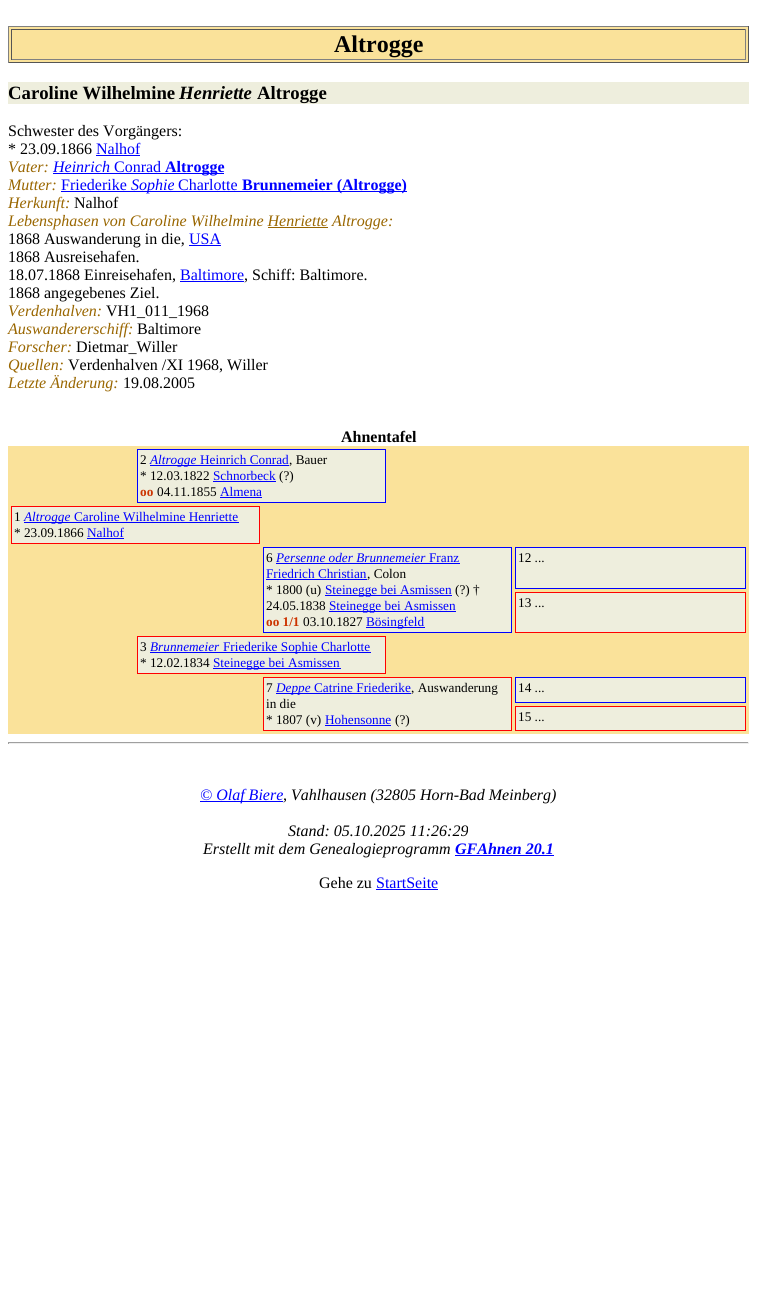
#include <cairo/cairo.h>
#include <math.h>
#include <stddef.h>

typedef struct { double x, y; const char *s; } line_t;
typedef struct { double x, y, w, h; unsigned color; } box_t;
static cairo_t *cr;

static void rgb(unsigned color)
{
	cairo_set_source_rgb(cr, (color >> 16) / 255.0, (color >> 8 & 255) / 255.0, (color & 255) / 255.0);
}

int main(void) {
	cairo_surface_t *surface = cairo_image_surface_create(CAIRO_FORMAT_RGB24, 757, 1312);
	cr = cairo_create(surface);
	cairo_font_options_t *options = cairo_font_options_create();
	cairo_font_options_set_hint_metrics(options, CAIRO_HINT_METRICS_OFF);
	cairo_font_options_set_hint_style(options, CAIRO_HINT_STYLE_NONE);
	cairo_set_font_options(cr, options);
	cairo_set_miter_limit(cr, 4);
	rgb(0xffffff);
	cairo_paint(cr);
	{
		static const box_t items[] = {
			{9, 27, 739, 35, 0xfae29a},
			{8, 26, 741, 1, 0x808080},
			{748, 26, 1, 37, 0x555555},
			{8, 62, 741, 1, 0x555555},
			{8, 26, 1, 37, 0x808080},
			{11, 29, 735, 1, 0x555555},
			{745, 29, 1, 31, 0x808080},
			{11, 59, 735, 1, 0x808080},
			{11, 29, 1, 31, 0x555555},
			{8, 82, 741, 22, 0xeeeedd},
			{96, 155, 44, 1, 0x0000ff},
			{53, 173, 171, 1, 0x0000ff},
			{61, 191, 346, 1, 0x0000ff},
			{268, 227, 60, 1, 0x996600},
			{189, 245, 32, 1, 0x0000ff},
			{180, 281, 64, 1, 0x0000ff},
			{8, 446, 741, 288, 0xfae29a},
		};
		for (size_t i = 0; i < sizeof items / sizeof *items; i++) {
			rgb(items[i].color);
			cairo_rectangle(cr, items[i].x, items[i].y, items[i].w, items[i].h);
			cairo_fill(cr);
		}
	}
	rgb(0xeeeedd);
	cairo_rectangle(cr, 137.5, 449.5, 248, 53);
	cairo_fill_preserve(cr);
	rgb(0x0000ff);
	cairo_set_line_width(cr, 1);
	cairo_stroke(cr);
	{
		static const box_t items[] = {
			{150, 465, 139, 1, 0x0000ff},
			{213, 481, 63, 1, 0x0000ff},
			{220, 497, 42, 1, 0x0000ff},
		};
		for (size_t i = 0; i < sizeof items / sizeof *items; i++) {
			rgb(items[i].color);
			cairo_rectangle(cr, items[i].x, items[i].y, items[i].w, items[i].h);
			cairo_fill(cr);
		}
	}
	rgb(0xeeeedd);
	cairo_rectangle(cr, 11.5, 506.5, 248, 37);
	cairo_fill_preserve(cr);
	rgb(0xff0000);
	cairo_stroke(cr);
	rgb(0x0000ff);
	cairo_rectangle(cr, 24, 522, 215, 1);
	cairo_fill(cr);
	cairo_rectangle(cr, 87, 538, 37, 1);
	cairo_fill(cr);
	rgb(0xeeeedd);
	cairo_rectangle(cr, 263.5, 547.5, 248, 85);
	cairo_fill_preserve(cr);
	rgb(0x0000ff);
	cairo_stroke(cr);
	{
		static const box_t items[] = {
			{276, 563, 184, 1, 0x0000ff},
			{266, 579, 101, 1, 0x0000ff},
			{325, 595, 127, 1, 0x0000ff},
			{329, 611, 127, 1, 0x0000ff},
			{366, 627, 59, 1, 0x0000ff},
		};
		for (size_t i = 0; i < sizeof items / sizeof *items; i++) {
			rgb(items[i].color);
			cairo_rectangle(cr, items[i].x, items[i].y, items[i].w, items[i].h);
			cairo_fill(cr);
		}
	}
	rgb(0xeeeedd);
	cairo_rectangle(cr, 515.5, 547.5, 230, 41);
	cairo_fill_preserve(cr);
	rgb(0x0000ff);
	cairo_stroke(cr);
	rgb(0xeeeedd);
	cairo_rectangle(cr, 515.5, 592.5, 230, 40);
	cairo_fill_preserve(cr);
	rgb(0xff0000);
	cairo_stroke(cr);
	rgb(0xeeeedd);
	cairo_rectangle(cr, 137.5, 636.5, 248, 37);
	cairo_fill_preserve(cr);
	rgb(0xff0000);
	cairo_stroke(cr);
	rgb(0x0000ff);
	cairo_rectangle(cr, 150, 652, 221, 1);
	cairo_fill(cr);
	cairo_rectangle(cr, 213, 668, 128, 1);
	cairo_fill(cr);
	rgb(0xeeeedd);
	cairo_rectangle(cr, 263.5, 677.5, 248, 53);
	cairo_fill_preserve(cr);
	rgb(0xff0000);
	cairo_stroke(cr);
	rgb(0x0000ff);
	cairo_rectangle(cr, 276, 693, 135, 1);
	cairo_fill(cr);
	cairo_rectangle(cr, 325, 725, 66, 1);
	cairo_fill(cr);
	rgb(0xeeeedd);
	cairo_rectangle(cr, 515.5, 677.5, 230, 25);
	cairo_fill_preserve(cr);
	rgb(0x0000ff);
	cairo_stroke(cr);
	rgb(0xeeeedd);
	cairo_rectangle(cr, 515.5, 706.5, 230, 24);
	cairo_fill_preserve(cr);
	rgb(0xff0000);
	cairo_stroke(cr);
	{
		static const box_t items[] = {
			{8, 742, 741, 1, 0x9f9f9f},
			{748, 742, 1, 2, 0xeeeeee},
			{8, 743, 741, 1, 0xeeeeee},
			{8, 742, 1, 2, 0x9f9f9f},
			{200, 801, 83, 1, 0x0000ff},
			{455, 855, 99, 1, 0x0000ff},
			{376, 889, 62, 1, 0x0000ff},
		};
		for (size_t i = 0; i < sizeof items / sizeof *items; i++) {
			rgb(items[i].color);
			cairo_rectangle(cr, items[i].x, items[i].y, items[i].w, items[i].h);
			cairo_fill(cr);
		}
	}
	cairo_select_font_face(cr, "Liberation Serif", CAIRO_FONT_SLANT_NORMAL, CAIRO_FONT_WEIGHT_BOLD);
	cairo_set_font_size(cr, 24);
	rgb(0x000000);
	cairo_move_to(cr, 334, 52);
	cairo_show_text(cr, "Altrogge");
	cairo_set_font_size(cr, 18.75);
	cairo_move_to(cr, 8, 99);
	cairo_show_text(cr, "Caroline Wilhelmine");
	cairo_select_font_face(cr, "Liberation Serif", CAIRO_FONT_SLANT_ITALIC, CAIRO_FONT_WEIGHT_BOLD);
	cairo_move_to(cr, 179, 99);
	cairo_show_text(cr, "Henriette");
	cairo_select_font_face(cr, "Liberation Serif", CAIRO_FONT_SLANT_NORMAL, CAIRO_FONT_WEIGHT_BOLD);
	cairo_move_to(cr, 257, 99);
	cairo_show_text(cr, "Altrogge");
	cairo_select_font_face(cr, "Liberation Serif", CAIRO_FONT_SLANT_NORMAL, CAIRO_FONT_WEIGHT_NORMAL);
	cairo_set_font_size(cr, 16);
	cairo_move_to(cr, 8, 136);
	cairo_show_text(cr, "Schwester des Vorgängers:");
	cairo_move_to(cr, 8, 154);
	cairo_show_text(cr, "* 23.09.1866");
	rgb(0x0000ff);
	cairo_move_to(cr, 96, 154);
	cairo_show_text(cr, "Nalhof");
	cairo_select_font_face(cr, "Liberation Serif", CAIRO_FONT_SLANT_ITALIC, CAIRO_FONT_WEIGHT_NORMAL);
	rgb(0x996600);
	cairo_move_to(cr, 8, 172);
	cairo_show_text(cr, "Vater:");
	rgb(0x0000ff);
	cairo_move_to(cr, 53, 172);
	cairo_show_text(cr, "Heinrich");
	cairo_select_font_face(cr, "Liberation Serif", CAIRO_FONT_SLANT_NORMAL, CAIRO_FONT_WEIGHT_NORMAL);
	cairo_move_to(cr, 114, 172);
	cairo_show_text(cr, "Conrad");
	cairo_select_font_face(cr, "Liberation Serif", CAIRO_FONT_SLANT_NORMAL, CAIRO_FONT_WEIGHT_BOLD);
	cairo_move_to(cr, 165, 172);
	cairo_show_text(cr, "Altrogge");
	cairo_select_font_face(cr, "Liberation Serif", CAIRO_FONT_SLANT_ITALIC, CAIRO_FONT_WEIGHT_NORMAL);
	rgb(0x996600);
	cairo_move_to(cr, 8, 190);
	cairo_show_text(cr, "Mutter:");
	cairo_select_font_face(cr, "Liberation Serif", CAIRO_FONT_SLANT_NORMAL, CAIRO_FONT_WEIGHT_NORMAL);
	rgb(0x0000ff);
	cairo_move_to(cr, 61, 190);
	cairo_show_text(cr, "Friederike");
	cairo_select_font_face(cr, "Liberation Serif", CAIRO_FONT_SLANT_ITALIC, CAIRO_FONT_WEIGHT_NORMAL);
	cairo_move_to(cr, 131, 190);
	cairo_show_text(cr, "Sophie");
	cairo_select_font_face(cr, "Liberation Serif", CAIRO_FONT_SLANT_NORMAL, CAIRO_FONT_WEIGHT_NORMAL);
	cairo_move_to(cr, 178, 190);
	cairo_show_text(cr, "Charlotte");
	cairo_select_font_face(cr, "Liberation Serif", CAIRO_FONT_SLANT_NORMAL, CAIRO_FONT_WEIGHT_BOLD);
	cairo_move_to(cr, 242, 190);
	cairo_show_text(cr, "Brunnemeier (Altrogge)");
	cairo_select_font_face(cr, "Liberation Serif", CAIRO_FONT_SLANT_ITALIC, CAIRO_FONT_WEIGHT_NORMAL);
	rgb(0x996600);
	cairo_move_to(cr, 8, 208);
	cairo_show_text(cr, "Herkunft:");
	cairo_select_font_face(cr, "Liberation Serif", CAIRO_FONT_SLANT_NORMAL, CAIRO_FONT_WEIGHT_NORMAL);
	rgb(0x000000);
	cairo_move_to(cr, 74, 208);
	cairo_show_text(cr, "Nalhof");
	cairo_select_font_face(cr, "Liberation Serif", CAIRO_FONT_SLANT_ITALIC, CAIRO_FONT_WEIGHT_NORMAL);
	rgb(0x996600);
	cairo_move_to(cr, 8, 226);
	cairo_show_text(cr, "Lebensphasen von Caroline Wilhelmine Henriette Altrogge:");
	cairo_select_font_face(cr, "Liberation Serif", CAIRO_FONT_SLANT_NORMAL, CAIRO_FONT_WEIGHT_NORMAL);
	rgb(0x000000);
	cairo_move_to(cr, 8, 244);
	cairo_show_text(cr, "1868 Auswanderung in die,");
	rgb(0x0000ff);
	cairo_move_to(cr, 189, 244);
	cairo_show_text(cr, "USA");
	rgb(0x000000);
	cairo_move_to(cr, 8, 262);
	cairo_show_text(cr, "1868 Ausreisehafen.");
	cairo_move_to(cr, 8, 280);
	cairo_show_text(cr, "18.07.1868 Einreisehafen,");
	rgb(0x0000ff);
	cairo_move_to(cr, 180, 280);
	cairo_show_text(cr, "Baltimore");
	rgb(0x000000);
	cairo_move_to(cr, 244, 280);
	cairo_show_text(cr, ", Schiff: Baltimore.");
	cairo_move_to(cr, 8, 298);
	cairo_show_text(cr, "1868 angegebenes Ziel.");
	cairo_select_font_face(cr, "Liberation Serif", CAIRO_FONT_SLANT_ITALIC, CAIRO_FONT_WEIGHT_NORMAL);
	rgb(0x996600);
	cairo_move_to(cr, 8, 316);
	cairo_show_text(cr, "Verdenhalven:");
	cairo_select_font_face(cr, "Liberation Serif", CAIRO_FONT_SLANT_NORMAL, CAIRO_FONT_WEIGHT_NORMAL);
	rgb(0x000000);
	cairo_move_to(cr, 106, 316);
	cairo_show_text(cr, "VH1_011_1968");
	cairo_select_font_face(cr, "Liberation Serif", CAIRO_FONT_SLANT_ITALIC, CAIRO_FONT_WEIGHT_NORMAL);
	rgb(0x996600);
	cairo_move_to(cr, 8, 334);
	cairo_show_text(cr, "Auswandererschiff:");
	cairo_select_font_face(cr, "Liberation Serif", CAIRO_FONT_SLANT_NORMAL, CAIRO_FONT_WEIGHT_NORMAL);
	rgb(0x000000);
	cairo_move_to(cr, 137, 334);
	cairo_show_text(cr, "Baltimore");
	cairo_select_font_face(cr, "Liberation Serif", CAIRO_FONT_SLANT_ITALIC, CAIRO_FONT_WEIGHT_NORMAL);
	rgb(0x996600);
	cairo_move_to(cr, 8, 352);
	cairo_show_text(cr, "Forscher:");
	cairo_select_font_face(cr, "Liberation Serif", CAIRO_FONT_SLANT_NORMAL, CAIRO_FONT_WEIGHT_NORMAL);
	rgb(0x000000);
	cairo_move_to(cr, 76, 352);
	cairo_show_text(cr, "Dietmar_Willer");
	cairo_select_font_face(cr, "Liberation Serif", CAIRO_FONT_SLANT_ITALIC, CAIRO_FONT_WEIGHT_NORMAL);
	rgb(0x996600);
	cairo_move_to(cr, 8, 370);
	cairo_show_text(cr, "Quellen:");
	cairo_select_font_face(cr, "Liberation Serif", CAIRO_FONT_SLANT_NORMAL, CAIRO_FONT_WEIGHT_NORMAL);
	rgb(0x000000);
	cairo_move_to(cr, 68, 370);
	cairo_show_text(cr, "Verdenhalven /XI 1968, Willer");
	cairo_select_font_face(cr, "Liberation Serif", CAIRO_FONT_SLANT_ITALIC, CAIRO_FONT_WEIGHT_NORMAL);
	rgb(0x996600);
	cairo_move_to(cr, 8, 388);
	cairo_show_text(cr, "Letzte Änderung:");
	cairo_select_font_face(cr, "Liberation Serif", CAIRO_FONT_SLANT_NORMAL, CAIRO_FONT_WEIGHT_NORMAL);
	rgb(0x000000);
	cairo_move_to(cr, 123, 388);
	cairo_show_text(cr, "19.08.2005");
	cairo_select_font_face(cr, "Liberation Serif", CAIRO_FONT_SLANT_NORMAL, CAIRO_FONT_WEIGHT_BOLD);
	cairo_move_to(cr, 341, 442);
	cairo_show_text(cr, "Ahnentafel");
	cairo_select_font_face(cr, "Liberation Serif", CAIRO_FONT_SLANT_NORMAL, CAIRO_FONT_WEIGHT_NORMAL);
	cairo_set_font_size(cr, 13.25);
	cairo_move_to(cr, 140, 464);
	cairo_show_text(cr, "2");
	cairo_select_font_face(cr, "Liberation Serif", CAIRO_FONT_SLANT_ITALIC, CAIRO_FONT_WEIGHT_NORMAL);
	rgb(0x0000ff);
	cairo_move_to(cr, 150, 464);
	cairo_show_text(cr, "Altrogge");
	cairo_select_font_face(cr, "Liberation Serif", CAIRO_FONT_SLANT_NORMAL, CAIRO_FONT_WEIGHT_NORMAL);
	cairo_move_to(cr, 200, 464);
	cairo_show_text(cr, "Heinrich Conrad");
	rgb(0x000000);
	cairo_move_to(cr, 289, 464);
	cairo_show_text(cr, ", Bauer");
	cairo_move_to(cr, 140, 480);
	cairo_show_text(cr, "* 12.03.1822");
	rgb(0x0000ff);
	cairo_move_to(cr, 213, 480);
	cairo_show_text(cr, "Schnorbeck");
	rgb(0x000000);
	cairo_move_to(cr, 279, 480);
	cairo_show_text(cr, "(?)");
	cairo_select_font_face(cr, "Liberation Serif", CAIRO_FONT_SLANT_NORMAL, CAIRO_FONT_WEIGHT_BOLD);
	rgb(0xcc3300);
	cairo_move_to(cr, 140, 496);
	cairo_show_text(cr, "oo");
	cairo_select_font_face(cr, "Liberation Serif", CAIRO_FONT_SLANT_NORMAL, CAIRO_FONT_WEIGHT_NORMAL);
	rgb(0x000000);
	cairo_move_to(cr, 157, 496);
	cairo_show_text(cr, "04.11.1855");
	rgb(0x0000ff);
	cairo_move_to(cr, 220, 496);
	cairo_show_text(cr, "Almena");
	rgb(0x000000);
	cairo_move_to(cr, 14, 521);
	cairo_show_text(cr, "1");
	cairo_select_font_face(cr, "Liberation Serif", CAIRO_FONT_SLANT_ITALIC, CAIRO_FONT_WEIGHT_NORMAL);
	rgb(0x0000ff);
	cairo_move_to(cr, 24, 521);
	cairo_show_text(cr, "Altrogge");
	cairo_select_font_face(cr, "Liberation Serif", CAIRO_FONT_SLANT_NORMAL, CAIRO_FONT_WEIGHT_NORMAL);
	cairo_move_to(cr, 74, 521);
	cairo_show_text(cr, "Caroline Wilhelmine Henriette");
	rgb(0x000000);
	cairo_move_to(cr, 14, 537);
	cairo_show_text(cr, "* 23.09.1866");
	rgb(0x0000ff);
	cairo_move_to(cr, 87, 537);
	cairo_show_text(cr, "Nalhof");
	rgb(0x000000);
	cairo_move_to(cr, 266, 562);
	cairo_show_text(cr, "6");
	cairo_select_font_face(cr, "Liberation Serif", CAIRO_FONT_SLANT_ITALIC, CAIRO_FONT_WEIGHT_NORMAL);
	rgb(0x0000ff);
	cairo_move_to(cr, 276, 562);
	cairo_show_text(cr, "Persenne oder Brunnemeier");
	cairo_select_font_face(cr, "Liberation Serif", CAIRO_FONT_SLANT_NORMAL, CAIRO_FONT_WEIGHT_NORMAL);
	cairo_move_to(cr, 429, 562);
	cairo_show_text(cr, "Franz");
	cairo_move_to(cr, 266, 578);
	cairo_show_text(cr, "Friedrich Christian");
	rgb(0x000000);
	cairo_move_to(cr, 367, 578);
	cairo_show_text(cr, ", Colon");
	cairo_move_to(cr, 266, 594);
	cairo_show_text(cr, "* 1800 (u)");
	rgb(0x0000ff);
	cairo_move_to(cr, 325, 594);
	cairo_show_text(cr, "Steinegge bei Asmissen");
	rgb(0x000000);
	cairo_move_to(cr, 455, 594);
	cairo_show_text(cr, "(?) †");
	cairo_move_to(cr, 266, 610);
	cairo_show_text(cr, "24.05.1838");
	rgb(0x0000ff);
	cairo_move_to(cr, 329, 610);
	cairo_show_text(cr, "Steinegge bei Asmissen");
	cairo_select_font_face(cr, "Liberation Serif", CAIRO_FONT_SLANT_NORMAL, CAIRO_FONT_WEIGHT_BOLD);
	rgb(0xcc3300);
	cairo_move_to(cr, 266, 626);
	cairo_show_text(cr, "oo 1/1");
	cairo_select_font_face(cr, "Liberation Serif", CAIRO_FONT_SLANT_NORMAL, CAIRO_FONT_WEIGHT_NORMAL);
	rgb(0x000000);
	cairo_move_to(cr, 303, 626);
	cairo_show_text(cr, "03.10.1827");
	rgb(0x0000ff);
	cairo_move_to(cr, 366, 626);
	cairo_show_text(cr, "Bösingfeld");
	rgb(0x000000);
	{
		static const line_t items[] = {
			{518, 562, "12 ..."},
			{518, 607, "13 ..."},
			{140, 651, "3"},
		};
		for (size_t i = 0; i < sizeof items / sizeof *items; i++) {
			cairo_move_to(cr, items[i].x, items[i].y);
			cairo_show_text(cr, items[i].s);
		}
	}
	cairo_select_font_face(cr, "Liberation Serif", CAIRO_FONT_SLANT_ITALIC, CAIRO_FONT_WEIGHT_NORMAL);
	rgb(0x0000ff);
	cairo_move_to(cr, 150, 651);
	cairo_show_text(cr, "Brunnemeier");
	cairo_select_font_face(cr, "Liberation Serif", CAIRO_FONT_SLANT_NORMAL, CAIRO_FONT_WEIGHT_NORMAL);
	cairo_move_to(cr, 223, 651);
	cairo_show_text(cr, "Friederike Sophie Charlotte");
	rgb(0x000000);
	cairo_move_to(cr, 140, 667);
	cairo_show_text(cr, "* 12.02.1834");
	rgb(0x0000ff);
	cairo_move_to(cr, 213, 667);
	cairo_show_text(cr, "Steinegge bei Asmissen");
	rgb(0x000000);
	cairo_move_to(cr, 266, 692);
	cairo_show_text(cr, "7");
	cairo_select_font_face(cr, "Liberation Serif", CAIRO_FONT_SLANT_ITALIC, CAIRO_FONT_WEIGHT_NORMAL);
	rgb(0x0000ff);
	cairo_move_to(cr, 276, 692);
	cairo_show_text(cr, "Deppe");
	cairo_select_font_face(cr, "Liberation Serif", CAIRO_FONT_SLANT_NORMAL, CAIRO_FONT_WEIGHT_NORMAL);
	cairo_move_to(cr, 314, 692);
	cairo_show_text(cr, "Catrine Friederike");
	rgb(0x000000);
	{
		static const line_t items[] = {
			{411, 692, ", Auswanderung"},
			{266, 708, "in die"},
			{266, 724, "* 1807 (v)"},
		};
		for (size_t i = 0; i < sizeof items / sizeof *items; i++) {
			cairo_move_to(cr, items[i].x, items[i].y);
			cairo_show_text(cr, items[i].s);
		}
	}
	rgb(0x0000ff);
	cairo_move_to(cr, 325, 724);
	cairo_show_text(cr, "Hohensonne");
	rgb(0x000000);
	{
		static const line_t items[] = {
			{395, 724, "(?)"},
			{518, 692, "14 ..."},
			{518, 721, "15 ..."},
		};
		for (size_t i = 0; i < sizeof items / sizeof *items; i++) {
			cairo_move_to(cr, items[i].x, items[i].y);
			cairo_show_text(cr, items[i].s);
		}
	}
	cairo_select_font_face(cr, "Liberation Serif", CAIRO_FONT_SLANT_ITALIC, CAIRO_FONT_WEIGHT_NORMAL);
	cairo_set_font_size(cr, 16);
	rgb(0x0000ff);
	cairo_move_to(cr, 200, 800);
	cairo_show_text(cr, "© Olaf Biere");
	rgb(0x000000);
	{
		static const line_t items[] = {
			{283, 800, ", Vahlhausen (32805 Horn-Bad Meinberg)"},
			{288, 836, "Stand: 05.10.2025 11:26:29"},
			{203, 854, "Erstellt mit dem Genealogieprogramm"},
		};
		for (size_t i = 0; i < sizeof items / sizeof *items; i++) {
			cairo_move_to(cr, items[i].x, items[i].y);
			cairo_show_text(cr, items[i].s);
		}
	}
	cairo_select_font_face(cr, "Liberation Serif", CAIRO_FONT_SLANT_ITALIC, CAIRO_FONT_WEIGHT_BOLD);
	rgb(0x0000ff);
	cairo_move_to(cr, 455, 854);
	cairo_show_text(cr, "GFAhnen 20.1");
	cairo_select_font_face(cr, "Liberation Serif", CAIRO_FONT_SLANT_NORMAL, CAIRO_FONT_WEIGHT_NORMAL);
	rgb(0x000000);
	cairo_move_to(cr, 319, 888);
	cairo_show_text(cr, "Gehe zu");
	rgb(0x0000ff);
	cairo_move_to(cr, 376, 888);
	cairo_show_text(cr, "StartSeite");
	cairo_surface_write_to_png(surface, "page.png");
	cairo_font_options_destroy(options);
	cairo_destroy(cr);
	cairo_surface_destroy(surface);
	return 0;
}
